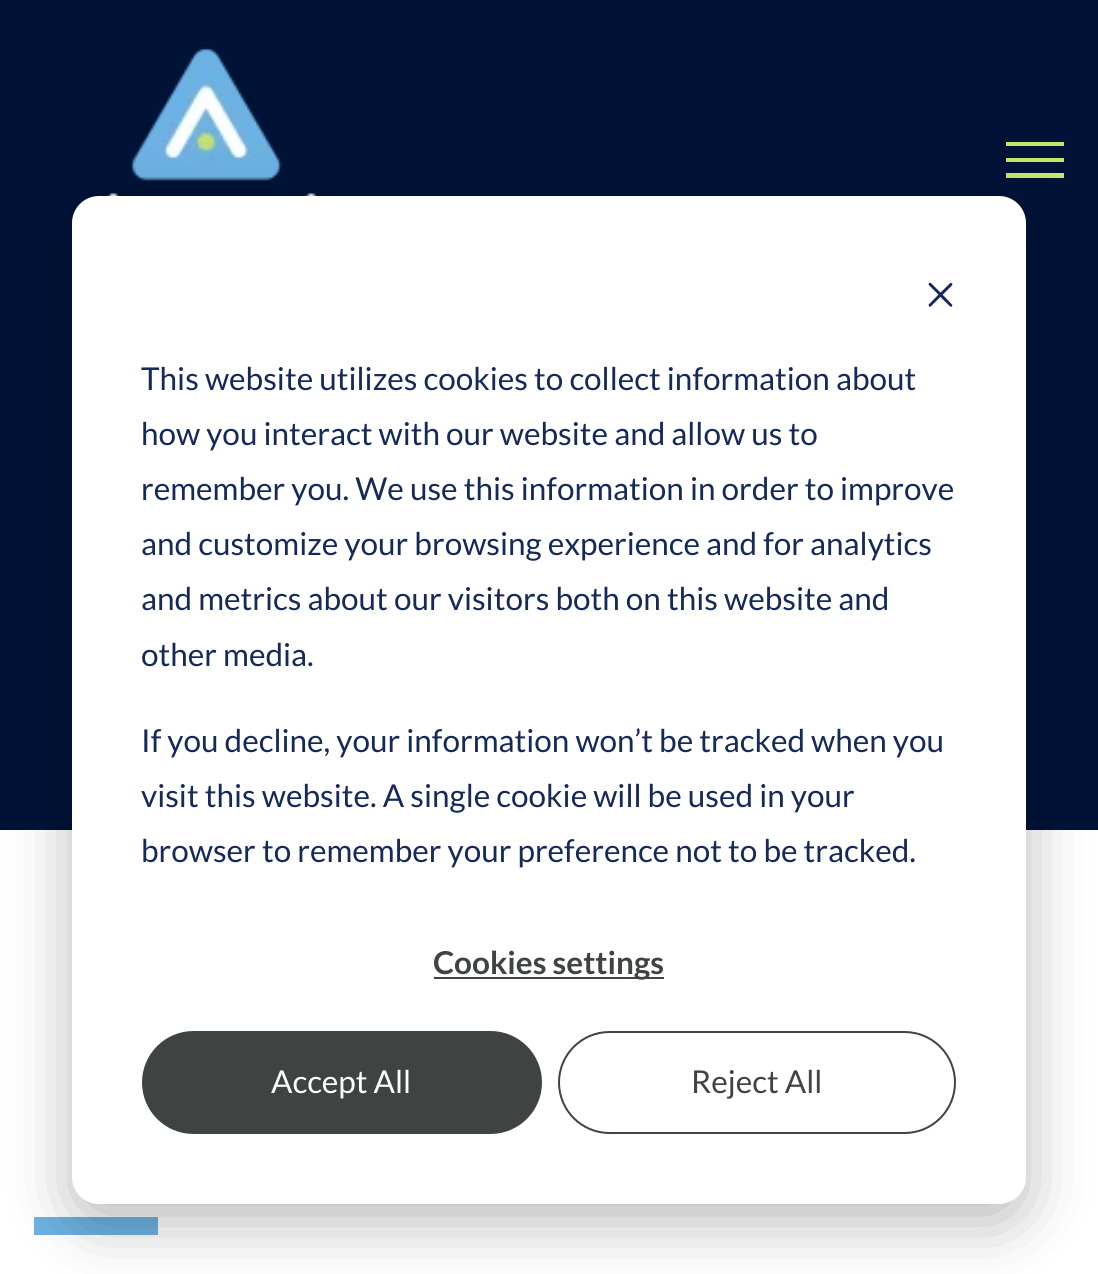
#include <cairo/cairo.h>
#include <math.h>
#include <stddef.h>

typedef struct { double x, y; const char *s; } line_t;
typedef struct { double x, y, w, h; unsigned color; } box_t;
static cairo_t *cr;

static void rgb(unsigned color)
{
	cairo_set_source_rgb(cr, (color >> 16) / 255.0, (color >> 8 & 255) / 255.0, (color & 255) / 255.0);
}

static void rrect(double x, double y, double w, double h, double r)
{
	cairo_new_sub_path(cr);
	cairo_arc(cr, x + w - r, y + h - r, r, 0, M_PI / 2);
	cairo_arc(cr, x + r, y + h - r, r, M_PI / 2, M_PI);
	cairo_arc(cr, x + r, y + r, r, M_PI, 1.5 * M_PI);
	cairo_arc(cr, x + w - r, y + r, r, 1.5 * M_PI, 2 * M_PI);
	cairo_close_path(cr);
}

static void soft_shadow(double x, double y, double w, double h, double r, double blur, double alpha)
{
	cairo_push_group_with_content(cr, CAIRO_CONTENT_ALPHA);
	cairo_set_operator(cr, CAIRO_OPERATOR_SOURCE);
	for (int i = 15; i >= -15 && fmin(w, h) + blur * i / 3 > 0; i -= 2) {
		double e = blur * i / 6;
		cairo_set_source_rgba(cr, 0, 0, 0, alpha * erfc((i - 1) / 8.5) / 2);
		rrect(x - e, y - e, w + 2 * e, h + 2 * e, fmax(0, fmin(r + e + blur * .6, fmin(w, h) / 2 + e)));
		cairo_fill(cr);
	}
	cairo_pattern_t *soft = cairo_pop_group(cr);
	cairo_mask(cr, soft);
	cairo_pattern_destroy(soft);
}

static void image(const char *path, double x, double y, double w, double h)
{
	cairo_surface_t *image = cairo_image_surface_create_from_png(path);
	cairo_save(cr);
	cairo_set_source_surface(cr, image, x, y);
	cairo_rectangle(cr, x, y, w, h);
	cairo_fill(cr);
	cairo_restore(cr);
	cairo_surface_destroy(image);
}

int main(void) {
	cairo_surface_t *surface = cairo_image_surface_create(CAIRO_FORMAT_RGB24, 1098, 1274);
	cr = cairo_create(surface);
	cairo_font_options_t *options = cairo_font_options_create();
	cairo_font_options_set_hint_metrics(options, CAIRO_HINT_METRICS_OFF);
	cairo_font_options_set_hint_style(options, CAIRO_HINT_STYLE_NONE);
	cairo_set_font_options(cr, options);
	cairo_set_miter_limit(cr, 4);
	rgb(0xffffff);
	cairo_paint(cr);
	rgb(0x001337);
	cairo_rectangle(cr, 0, 0, 1098, 830);
	cairo_fill(cr);
	image("img/1.png", 107, 47, 211, 149);
	{
		static const box_t items[] = {
			{1006, 142, 58, 4, 0xc4e76c},
			{1006, 158, 58, 4, 0xc4e76c},
			{1006, 173, 58, 5, 0xc4e76c},
			{34, 1217, 124, 18, 0x6db2e2},
		};
		for (size_t i = 0; i < sizeof items / sizeof *items; i++) {
			rgb(items[i].color);
			cairo_rectangle(cr, items[i].x, items[i].y, items[i].w, items[i].h);
			cairo_fill(cr);
		}
	}
	rgb(0x000000);
	soft_shadow(72, 214, 954, 1008, 27, 31.5, 0.28);
	rgb(0xffffff);
	rrect(72, 196, 954, 1008, 27);
	cairo_fill(cr);
	image("img/2.png", 928, 282, 25, 25);
	rgb(0x3f4443);
	cairo_rectangle(cr, 434, 977, 230, 2);
	cairo_fill(cr);
	rrect(143, 1032, 398, 101, 50.5);
	cairo_fill_preserve(cr);
	cairo_stroke(cr);
	rrect(559, 1032, 396, 101, 50.5);
	cairo_stroke(cr);
	cairo_select_font_face(cr, "Lato", CAIRO_FONT_SLANT_NORMAL, CAIRO_FONT_WEIGHT_NORMAL);
	cairo_set_font_size(cr, 31.5);
	rgb(0x15295a);
	{
		static const line_t items[] = {
			{141, 390, "This website utilizes cookies to collect information about"},
			{141, 445, "how you interact with our website and allow us to"},
			{141, 500, "remember you. We use this information in order to improve"},
			{141, 555, "and customize your browsing experience and for analytics"},
			{141, 610, "and metrics about our visitors both on this website and"},
			{141, 666, "other media."},
			{141, 752, "If you decline, your information won’t be tracked when you"},
			{141, 807, "visit this website. A single cookie will be used in your"},
			{141, 862, "browser to remember your preference not to be tracked."},
		};
		for (size_t i = 0; i < sizeof items / sizeof *items; i++) {
			cairo_move_to(cr, items[i].x, items[i].y);
			cairo_show_text(cr, items[i].s);
		}
	}
	cairo_select_font_face(cr, "Lato", CAIRO_FONT_SLANT_NORMAL, CAIRO_FONT_WEIGHT_BOLD);
	rgb(0x3f4443);
	cairo_move_to(cr, 433, 974);
	cairo_show_text(cr, "Cookies settings");
	cairo_select_font_face(cr, "Lato", CAIRO_FONT_SLANT_NORMAL, CAIRO_FONT_WEIGHT_NORMAL);
	rgb(0xffffff);
	cairo_move_to(cr, 271, 1093);
	cairo_show_text(cr, "Accept All");
	rgb(0x3f4443);
	cairo_move_to(cr, 691, 1093);
	cairo_show_text(cr, "Reject All");
	cairo_surface_write_to_png(surface, "page.png");
	cairo_font_options_destroy(options);
	cairo_destroy(cr);
	cairo_surface_destroy(surface);
	return 0;
}
